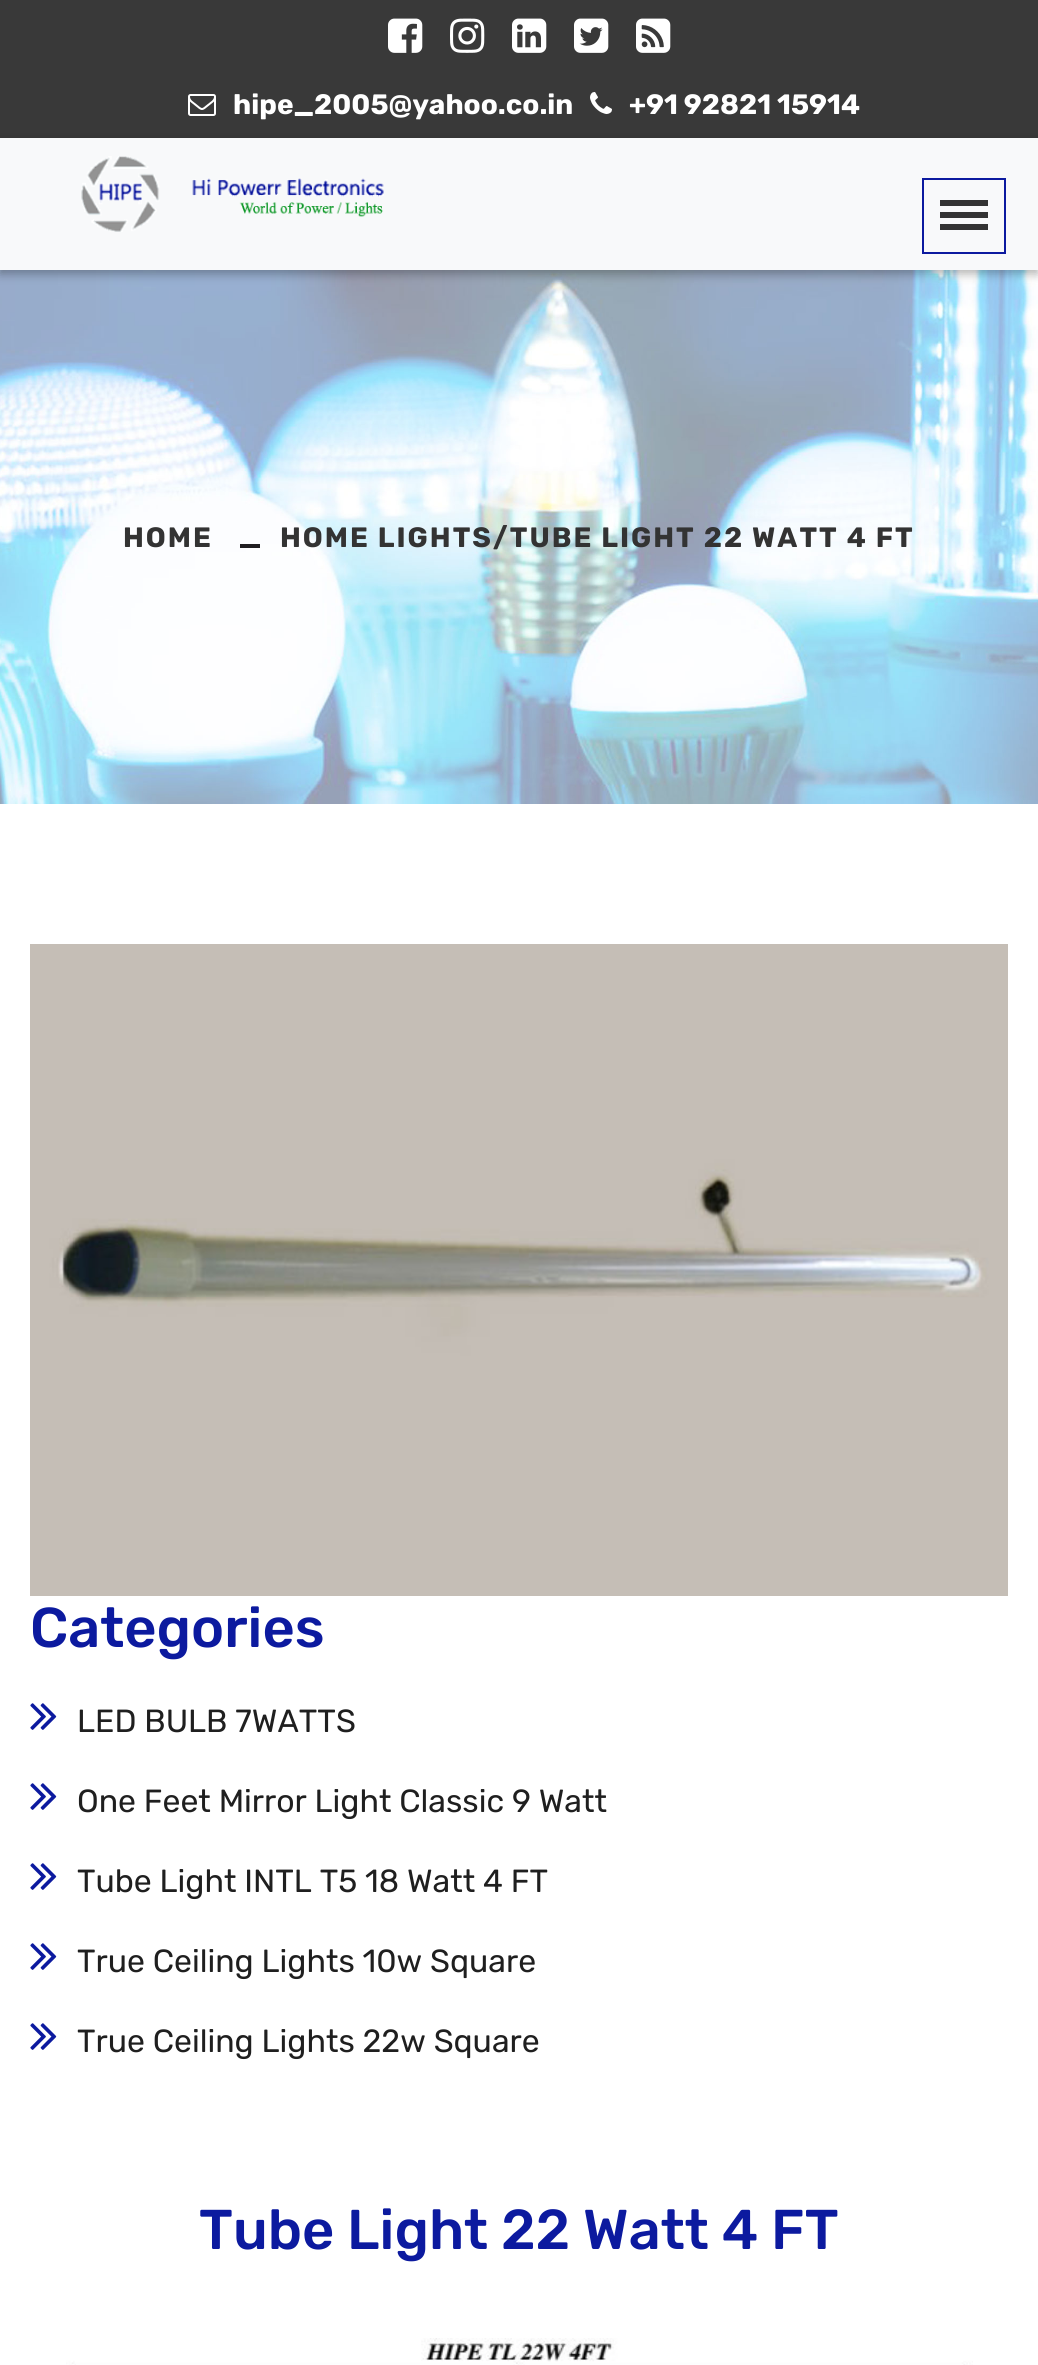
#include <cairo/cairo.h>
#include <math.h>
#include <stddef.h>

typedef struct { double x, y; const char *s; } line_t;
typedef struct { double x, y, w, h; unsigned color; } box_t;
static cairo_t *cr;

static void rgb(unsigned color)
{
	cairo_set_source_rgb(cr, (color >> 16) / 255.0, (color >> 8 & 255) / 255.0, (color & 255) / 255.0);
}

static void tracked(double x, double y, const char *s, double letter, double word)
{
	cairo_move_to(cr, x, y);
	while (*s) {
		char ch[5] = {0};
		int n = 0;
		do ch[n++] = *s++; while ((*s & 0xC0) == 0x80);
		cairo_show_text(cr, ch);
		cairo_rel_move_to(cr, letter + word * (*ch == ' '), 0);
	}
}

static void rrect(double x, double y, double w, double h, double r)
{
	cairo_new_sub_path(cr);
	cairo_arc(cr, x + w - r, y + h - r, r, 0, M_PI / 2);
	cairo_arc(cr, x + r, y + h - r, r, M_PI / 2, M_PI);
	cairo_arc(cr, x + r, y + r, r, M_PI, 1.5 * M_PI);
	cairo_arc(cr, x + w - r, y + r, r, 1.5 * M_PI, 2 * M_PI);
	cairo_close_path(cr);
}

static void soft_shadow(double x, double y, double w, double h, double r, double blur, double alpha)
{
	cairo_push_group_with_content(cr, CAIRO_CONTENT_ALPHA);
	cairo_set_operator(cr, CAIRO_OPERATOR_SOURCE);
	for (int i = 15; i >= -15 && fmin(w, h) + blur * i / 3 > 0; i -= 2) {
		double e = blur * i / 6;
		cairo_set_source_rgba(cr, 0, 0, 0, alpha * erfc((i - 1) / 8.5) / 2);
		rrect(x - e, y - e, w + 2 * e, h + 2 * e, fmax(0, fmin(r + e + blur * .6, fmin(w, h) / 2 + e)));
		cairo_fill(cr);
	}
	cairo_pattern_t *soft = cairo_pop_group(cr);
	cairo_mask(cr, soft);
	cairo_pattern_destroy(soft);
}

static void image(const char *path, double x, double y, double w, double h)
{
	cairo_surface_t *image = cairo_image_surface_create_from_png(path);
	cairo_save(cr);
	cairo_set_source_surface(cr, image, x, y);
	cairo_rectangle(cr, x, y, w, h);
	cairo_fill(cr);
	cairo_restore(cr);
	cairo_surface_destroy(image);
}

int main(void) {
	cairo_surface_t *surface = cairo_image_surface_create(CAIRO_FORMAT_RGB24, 1038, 2365);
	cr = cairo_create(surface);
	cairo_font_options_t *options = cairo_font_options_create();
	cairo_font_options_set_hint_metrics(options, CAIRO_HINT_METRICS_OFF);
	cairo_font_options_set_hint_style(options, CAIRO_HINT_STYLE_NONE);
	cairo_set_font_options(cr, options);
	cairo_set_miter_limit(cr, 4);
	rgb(0xffffff);
	cairo_paint(cr);
	rgb(0x393939);
	cairo_rectangle(cr, 0, 0, 1038, 138);
	cairo_fill(cr);
	image("img/1.png", 388, 18, 35, 35);
	image("img/2.png", 450, 18, 35, 35);
	image("img/3.png", 512, 18, 35, 35);
	image("img/4.png", 574, 18, 35, 35);
	image("img/5.png", 636, 18, 35, 35);
	image("img/6.png", 188, 94, 28, 22);
	image("img/7.png", 590, 92, 22, 22);
	image("img/9.png", 0, 270, 1038, 534);
	rgb(0x000000);
	soft_shadow(0, 142, 1038, 132, 0, 5, 0.3);
	rgb(0xf8f9fa);
	cairo_rectangle(cr, 0, 138, 1038, 132);
	cairo_fill(cr);
	image("img/8.png", 81, 156, 303, 76);
	cairo_rectangle(cr, 923, 179, 82, 74);
	rgb(0x0c1a9f);
	cairo_stroke(cr);
	{
		static const box_t items[] = {
			{940, 200, 48, 6, 0x333333},
			{940, 212, 48, 6, 0x333333},
			{940, 224, 48, 6, 0x333333},
			{240, 544, 20, 4, 0x201e21},
		};
		for (size_t i = 0; i < sizeof items / sizeof *items; i++) {
			rgb(items[i].color);
			cairo_rectangle(cr, items[i].x, items[i].y, items[i].w, items[i].h);
			cairo_fill(cr);
		}
	}
	image("img/10.png", 30, 944, 978, 652);
	image("img/11.png", 30, 1703, 27, 27);
	image("img/11.png", 30, 1783, 27, 27);
	image("img/11.png", 30, 1863, 27, 27);
	image("img/11.png", 30, 1943, 27, 27);
	image("img/11.png", 30, 2023, 27, 27);
	image("img/12.png", 66, 2338, 907, 27);
	cairo_select_font_face(cr, "Rubik", CAIRO_FONT_SLANT_NORMAL, CAIRO_FONT_WEIGHT_BOLD);
	cairo_set_font_size(cr, 28);
	rgb(0xffffff);
	cairo_move_to(cr, 233, 114);
	cairo_show_text(cr, "hipe_2005@yahoo.co.in");
	cairo_move_to(cr, 629, 114);
	cairo_show_text(cr, "+91 92821 15914");
	rgb(0x333333);
	tracked(123, 547, "HOME", 2, 0);
	tracked(280, 547, "HOME LIGHTS/TUBE LIGHT 22 WATT 4 FT", 2, 0);
	cairo_select_font_face(cr, "Rubik Medium", CAIRO_FONT_SLANT_NORMAL, CAIRO_FONT_WEIGHT_NORMAL);
	cairo_set_font_size(cr, 56);
	rgb(0x0c1a9f);
	cairo_move_to(cr, 30, 1647);
	cairo_show_text(cr, "Categories");
	cairo_select_font_face(cr, "Rubik", CAIRO_FONT_SLANT_NORMAL, CAIRO_FONT_WEIGHT_NORMAL);
	cairo_set_font_size(cr, 32);
	rgb(0x1f1f1f);
	{
		static const line_t items[] = {
			{77, 1732, "LED BULB 7WATTS"},
			{77, 1812, "One Feet Mirror Light Classic 9 Watt"},
			{77, 1892, "Tube Light INTL T5 18 Watt 4 FT"},
			{77, 1972, "True Ceiling Lights 10w Square"},
			{77, 2052, "True Ceiling Lights 22w Square"},
		};
		for (size_t i = 0; i < sizeof items / sizeof *items; i++) {
			cairo_move_to(cr, items[i].x, items[i].y);
			cairo_show_text(cr, items[i].s);
		}
	}
	cairo_select_font_face(cr, "Rubik Medium", CAIRO_FONT_SLANT_NORMAL, CAIRO_FONT_WEIGHT_NORMAL);
	cairo_set_font_size(cr, 56);
	rgb(0x0c1a9f);
	cairo_move_to(cr, 199, 2249);
	cairo_show_text(cr, "Tube Light 22 Watt 4 FT");
	cairo_surface_write_to_png(surface, "page.png");
	cairo_font_options_destroy(options);
	cairo_destroy(cr);
	cairo_surface_destroy(surface);
	return 0;
}
